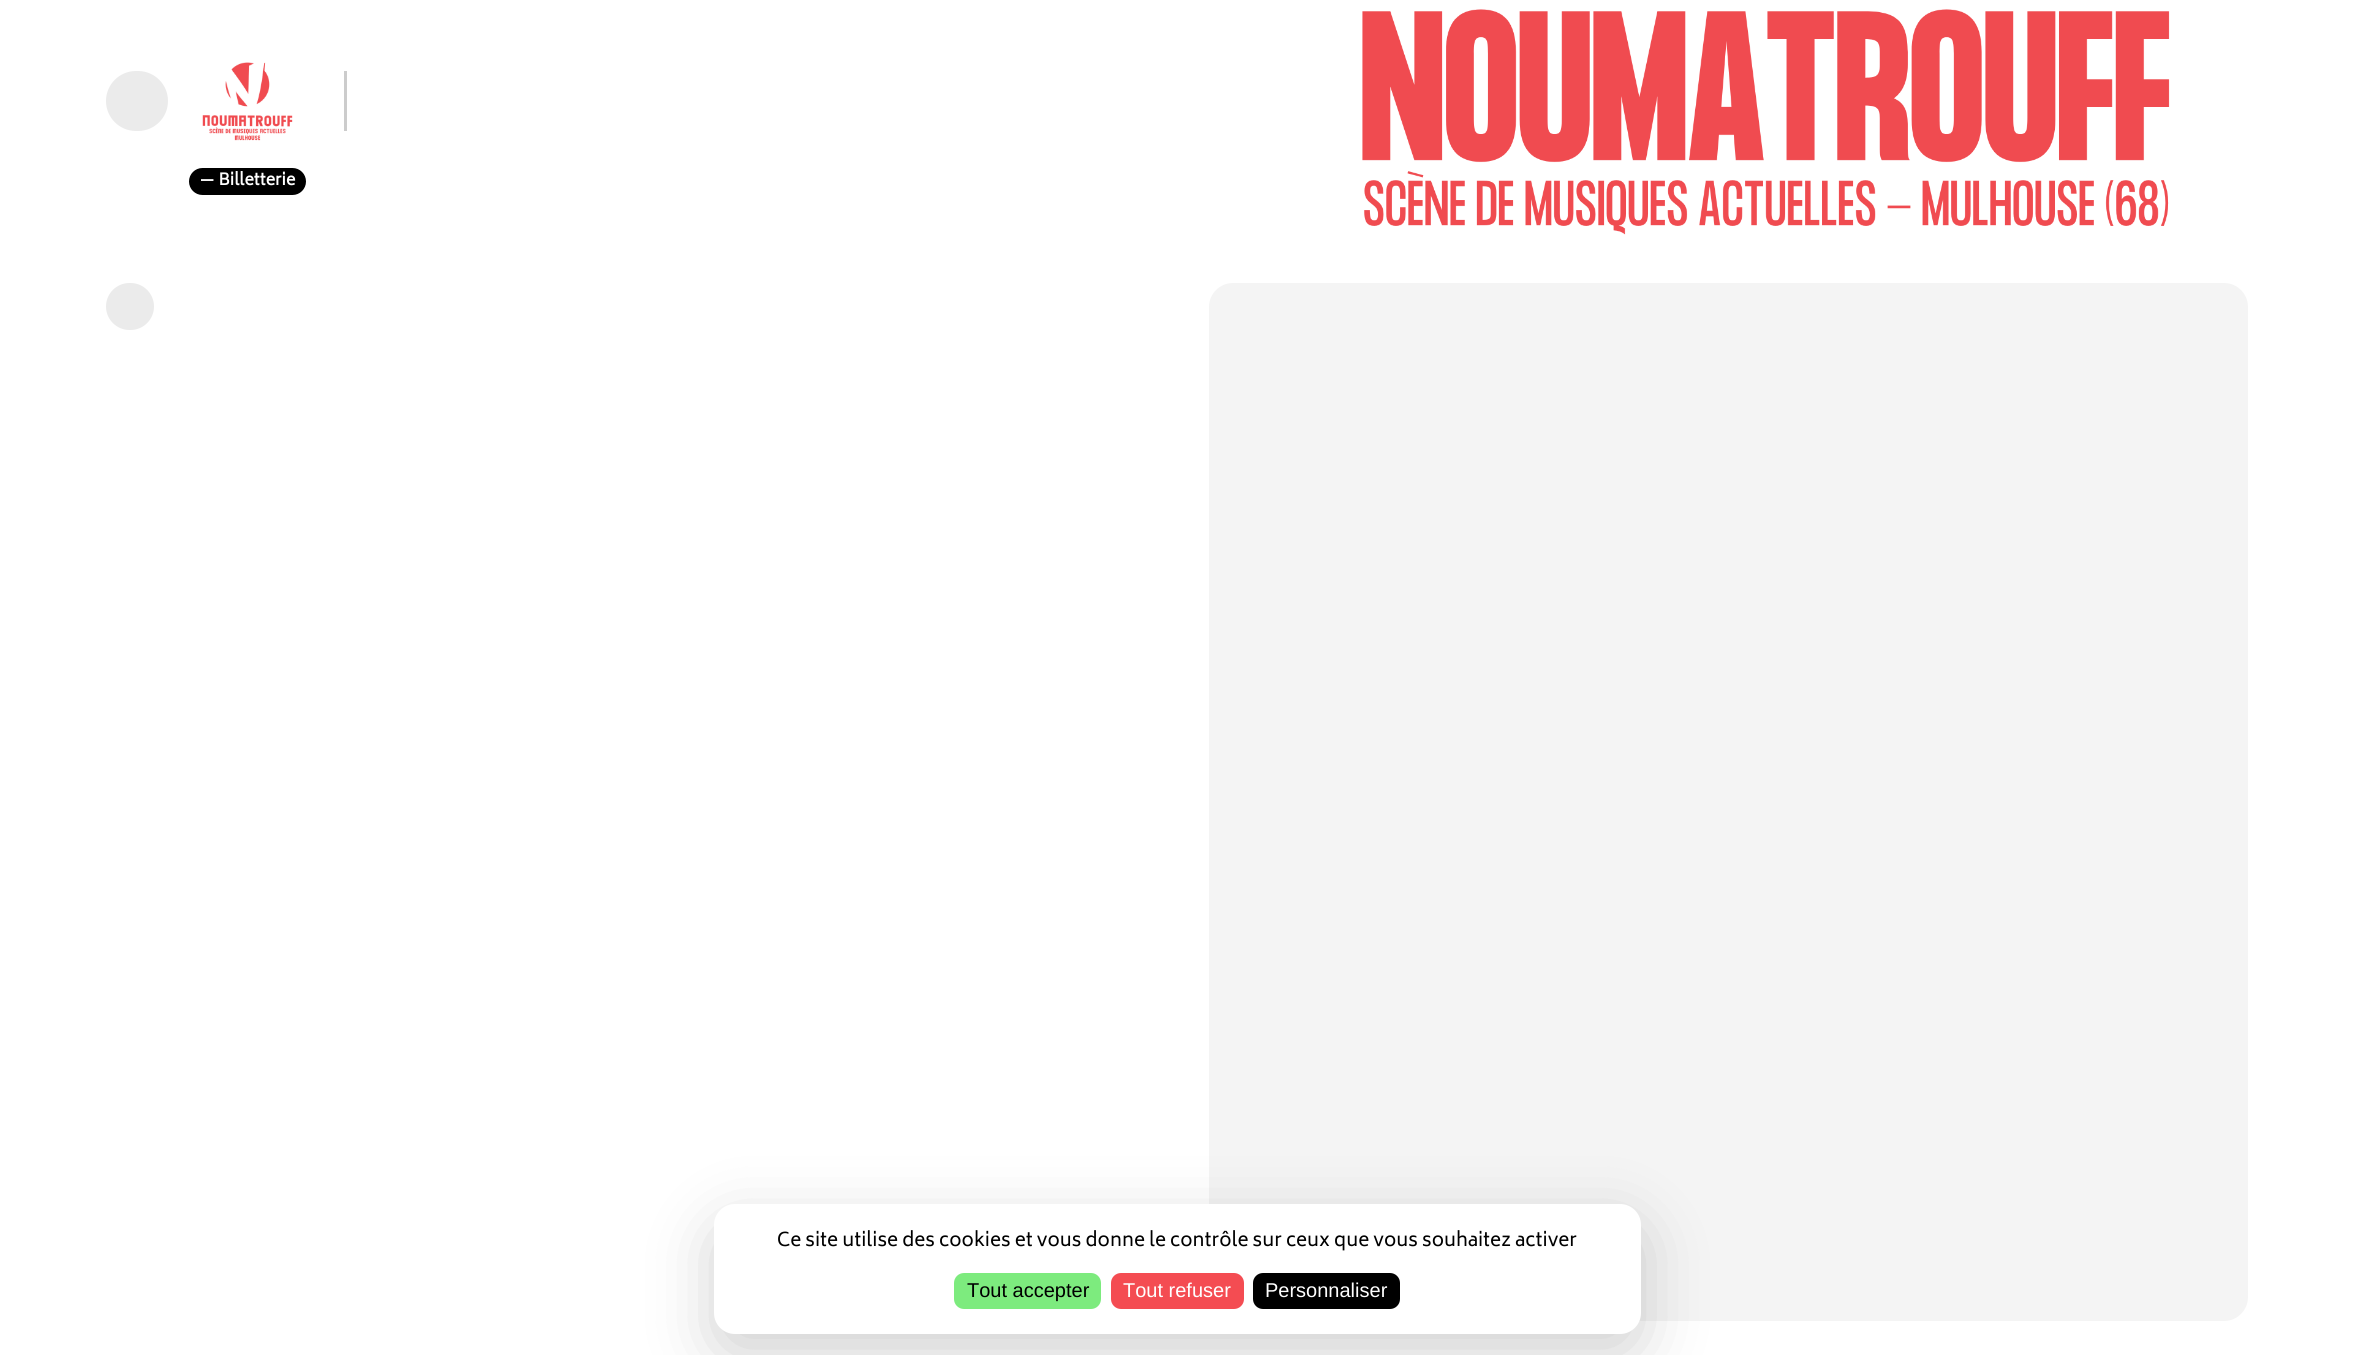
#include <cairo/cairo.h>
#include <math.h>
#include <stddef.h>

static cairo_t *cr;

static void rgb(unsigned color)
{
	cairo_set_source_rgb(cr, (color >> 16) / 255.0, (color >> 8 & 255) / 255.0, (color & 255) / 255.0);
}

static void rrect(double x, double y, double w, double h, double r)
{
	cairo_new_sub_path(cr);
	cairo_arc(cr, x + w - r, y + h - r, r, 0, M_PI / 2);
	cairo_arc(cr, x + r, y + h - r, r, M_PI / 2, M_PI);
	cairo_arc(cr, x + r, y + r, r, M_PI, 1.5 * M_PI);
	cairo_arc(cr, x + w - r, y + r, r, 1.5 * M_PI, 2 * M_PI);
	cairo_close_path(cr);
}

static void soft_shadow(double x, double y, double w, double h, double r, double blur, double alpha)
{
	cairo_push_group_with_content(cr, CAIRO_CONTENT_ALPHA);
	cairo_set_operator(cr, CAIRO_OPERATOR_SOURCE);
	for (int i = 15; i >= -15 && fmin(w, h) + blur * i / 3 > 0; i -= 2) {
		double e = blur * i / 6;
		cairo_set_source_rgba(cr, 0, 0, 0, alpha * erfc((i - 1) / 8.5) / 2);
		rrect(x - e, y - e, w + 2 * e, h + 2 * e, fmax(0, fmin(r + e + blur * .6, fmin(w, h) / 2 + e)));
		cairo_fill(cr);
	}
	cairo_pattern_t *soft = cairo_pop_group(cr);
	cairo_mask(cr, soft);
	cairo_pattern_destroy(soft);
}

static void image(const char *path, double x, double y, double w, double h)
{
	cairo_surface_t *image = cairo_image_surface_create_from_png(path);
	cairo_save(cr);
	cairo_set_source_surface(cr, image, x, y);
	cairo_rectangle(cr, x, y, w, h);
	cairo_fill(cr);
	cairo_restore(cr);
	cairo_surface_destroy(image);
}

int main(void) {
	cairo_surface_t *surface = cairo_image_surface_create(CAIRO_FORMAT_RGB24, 2353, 1355);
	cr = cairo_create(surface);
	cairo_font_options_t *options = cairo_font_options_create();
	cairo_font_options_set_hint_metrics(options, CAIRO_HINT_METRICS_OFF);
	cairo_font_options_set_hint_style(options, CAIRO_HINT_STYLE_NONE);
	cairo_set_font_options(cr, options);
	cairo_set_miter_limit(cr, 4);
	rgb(0xffffff);
	cairo_paint(cr);
	rgb(0xebebeb);
	rrect(106, 71, 62, 60, 30);
	cairo_fill(cr);
	rgb(0xcccccc);
	cairo_rectangle(cr, 344, 71, 3, 60);
	cairo_fill(cr);
	image("img/1.png", 202, 62, 91, 79);
	rgb(0x000000);
	rrect(189, 168, 117, 27, 13.5);
	cairo_fill(cr);
	image("img/2.png", 1362, 9, 808, 226);
	rgb(0xebebeb);
	rrect(106, 283, 48, 47, 23.5);
	cairo_fill(cr);
	rgb(0xf4f4f4);
	rrect(1209, 283, 1039, 1038, 24);
	cairo_fill(cr);
	rgb(0x000000);
	soft_shadow(714, 1225, 927, 130, 21, 32, 0.18);
	rgb(0xffffff);
	rrect(714, 1204, 927, 130, 21);
	cairo_fill(cr);
	rgb(0x7deb7e);
	rrect(954, 1273, 147, 36, 10);
	cairo_fill(cr);
	rgb(0xf44c52);
	rrect(1111, 1273, 133, 36, 10);
	cairo_fill(cr);
	rgb(0x000000);
	rrect(1253, 1273, 147, 36, 10);
	cairo_fill(cr);
	cairo_select_font_face(cr, "Biryani", CAIRO_FONT_SLANT_NORMAL, CAIRO_FONT_WEIGHT_BOLD);
	cairo_set_font_size(cr, 16);
	rgb(0xffffff);
	cairo_move_to(cr, 199, 185);
	cairo_show_text(cr, "— Billetterie");
	cairo_select_font_face(cr, "Biryani", CAIRO_FONT_SLANT_NORMAL, CAIRO_FONT_WEIGHT_NORMAL);
	cairo_set_font_size(cr, 18.75);
	rgb(0x000000);
	cairo_move_to(cr, 777, 1246);
	cairo_show_text(cr, "Ce site utilise des cookies et vous donne le contrôle sur ceux que vous souhaitez activer");
	cairo_select_font_face(cr, "Liberation Sans", CAIRO_FONT_SLANT_NORMAL, CAIRO_FONT_WEIGHT_NORMAL);
	cairo_set_font_size(cr, 20);
	cairo_move_to(cr, 967, 1297);
	cairo_show_text(cr, "Tout accepter");
	rgb(0xffffff);
	cairo_move_to(cr, 1123, 1297);
	cairo_show_text(cr, "Tout refuser");
	cairo_move_to(cr, 1265, 1297);
	cairo_show_text(cr, "Personnaliser");
	cairo_surface_write_to_png(surface, "page.png");
	cairo_font_options_destroy(options);
	cairo_destroy(cr);
	cairo_surface_destroy(surface);
	return 0;
}
